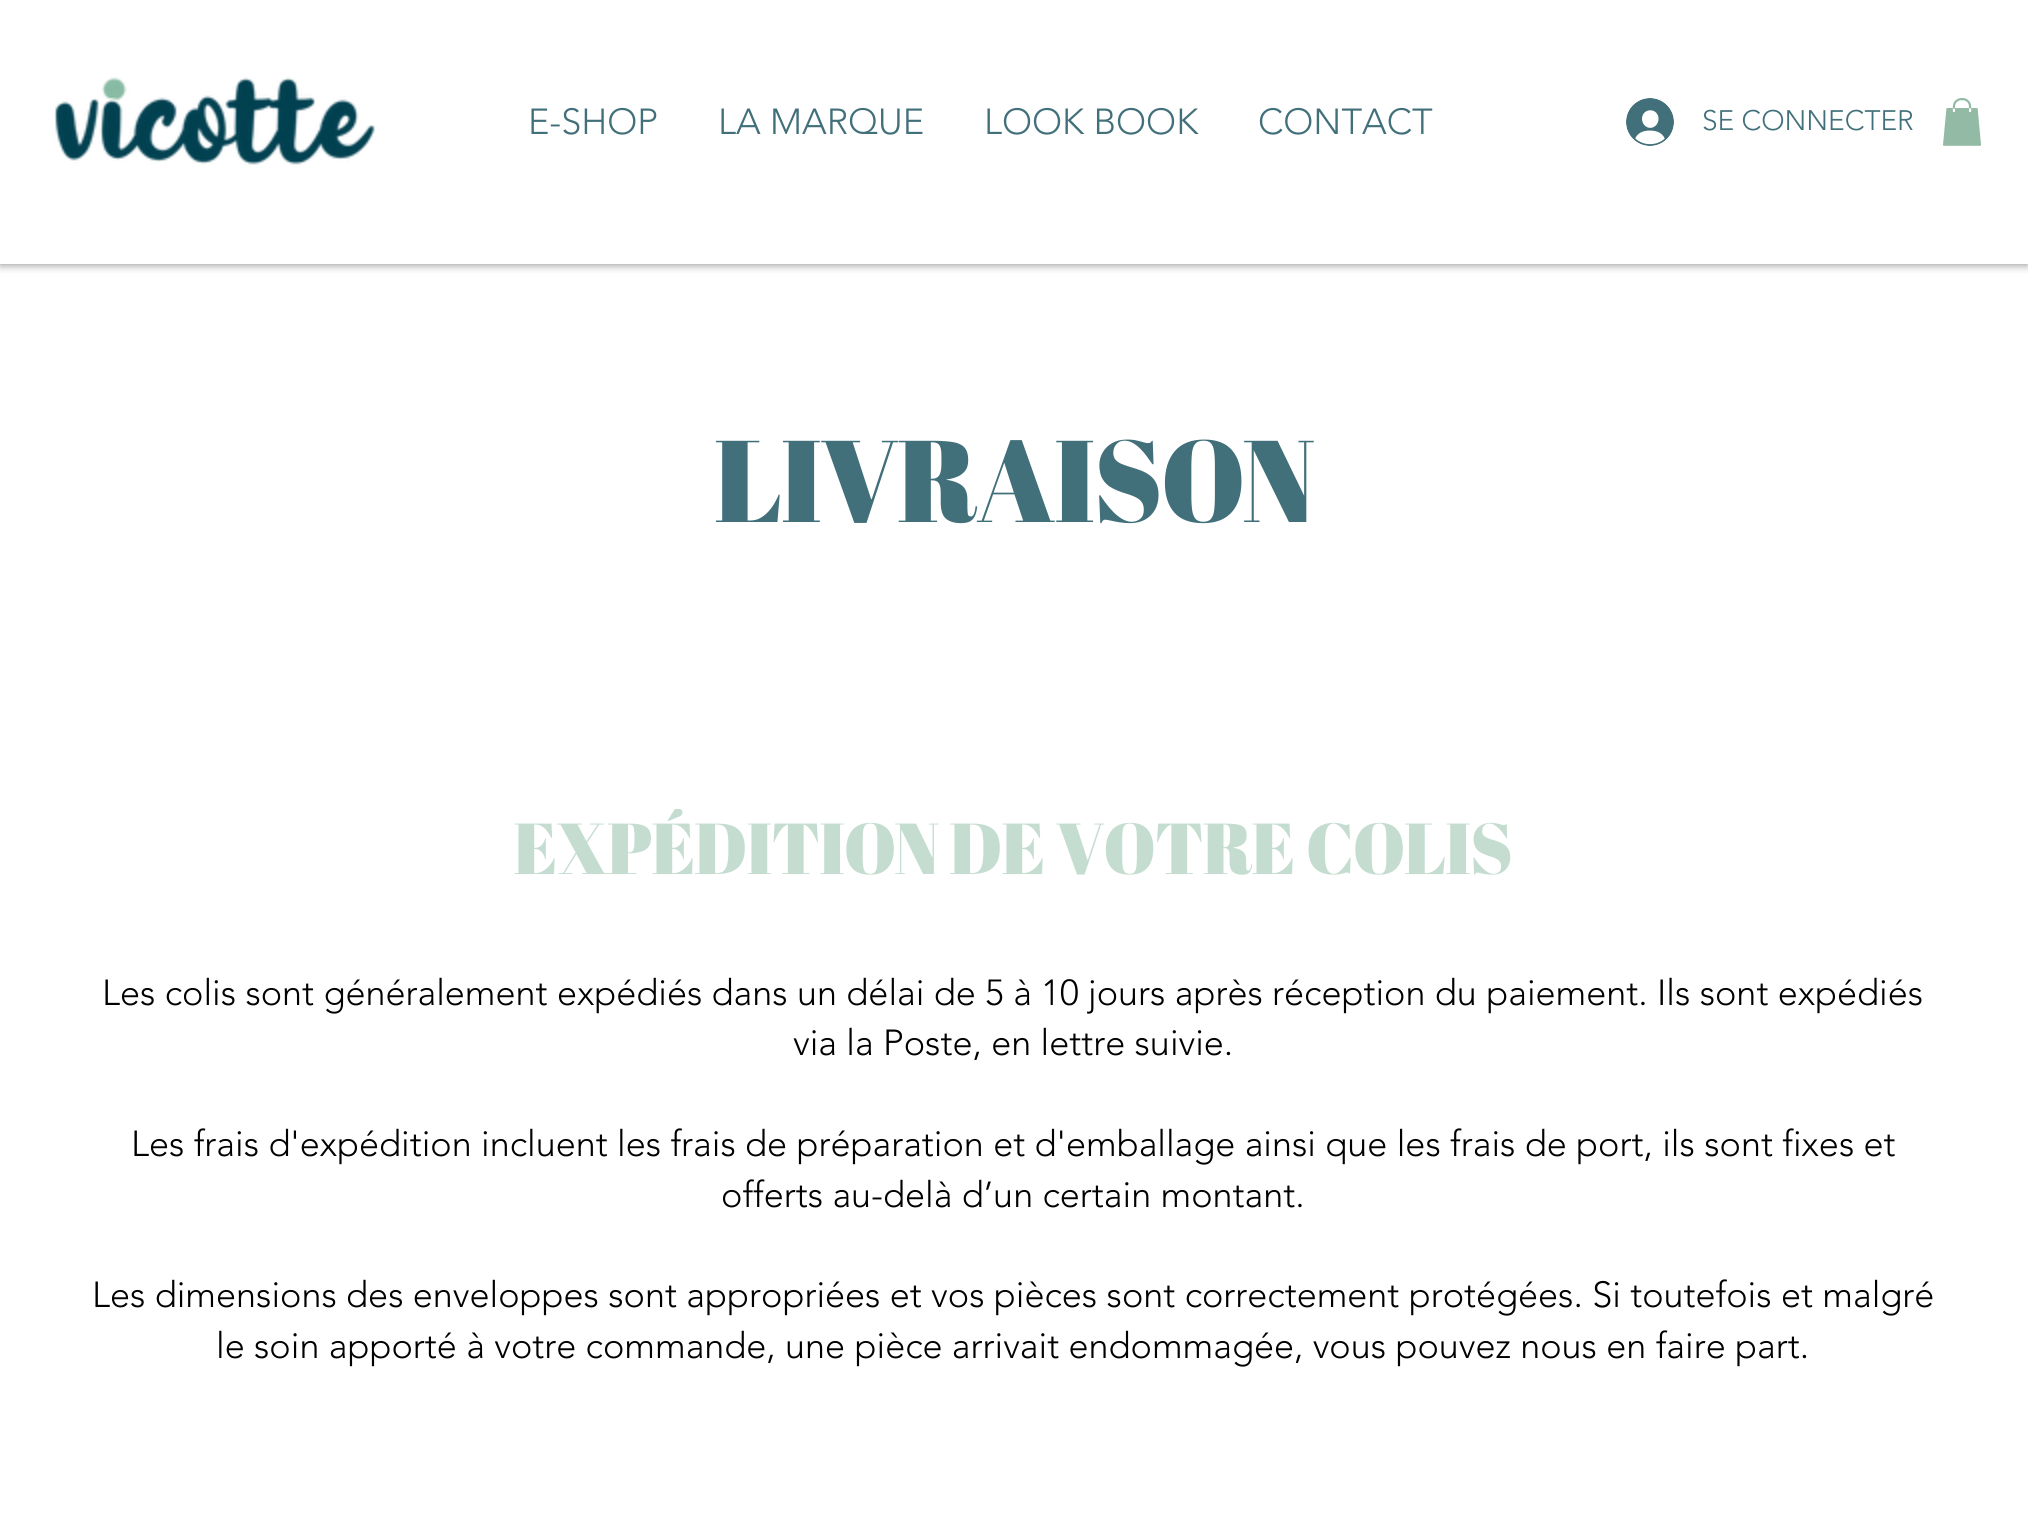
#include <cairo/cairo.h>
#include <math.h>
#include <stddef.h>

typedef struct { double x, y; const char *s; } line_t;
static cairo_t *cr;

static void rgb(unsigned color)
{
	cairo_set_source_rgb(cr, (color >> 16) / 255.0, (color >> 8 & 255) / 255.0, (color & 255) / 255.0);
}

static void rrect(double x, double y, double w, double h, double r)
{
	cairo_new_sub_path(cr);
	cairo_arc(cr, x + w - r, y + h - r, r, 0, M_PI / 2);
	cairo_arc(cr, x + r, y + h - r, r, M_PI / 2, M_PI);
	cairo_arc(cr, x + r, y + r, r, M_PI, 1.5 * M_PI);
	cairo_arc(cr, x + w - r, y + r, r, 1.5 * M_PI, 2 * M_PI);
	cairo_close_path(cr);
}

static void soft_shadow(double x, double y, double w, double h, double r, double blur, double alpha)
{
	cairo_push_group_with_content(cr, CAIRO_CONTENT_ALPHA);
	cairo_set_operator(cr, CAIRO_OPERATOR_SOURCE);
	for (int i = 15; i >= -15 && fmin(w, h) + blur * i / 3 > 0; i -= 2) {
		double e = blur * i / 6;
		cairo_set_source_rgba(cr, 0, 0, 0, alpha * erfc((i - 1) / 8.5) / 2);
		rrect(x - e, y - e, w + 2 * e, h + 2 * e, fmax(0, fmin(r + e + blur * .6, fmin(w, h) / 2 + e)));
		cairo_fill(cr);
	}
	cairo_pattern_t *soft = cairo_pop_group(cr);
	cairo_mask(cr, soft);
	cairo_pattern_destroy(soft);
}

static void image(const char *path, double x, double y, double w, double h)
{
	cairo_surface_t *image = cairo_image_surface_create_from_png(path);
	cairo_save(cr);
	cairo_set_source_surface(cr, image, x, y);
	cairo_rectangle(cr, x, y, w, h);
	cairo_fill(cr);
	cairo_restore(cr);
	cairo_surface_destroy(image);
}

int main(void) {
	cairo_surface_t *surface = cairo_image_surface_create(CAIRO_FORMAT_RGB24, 2028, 1533);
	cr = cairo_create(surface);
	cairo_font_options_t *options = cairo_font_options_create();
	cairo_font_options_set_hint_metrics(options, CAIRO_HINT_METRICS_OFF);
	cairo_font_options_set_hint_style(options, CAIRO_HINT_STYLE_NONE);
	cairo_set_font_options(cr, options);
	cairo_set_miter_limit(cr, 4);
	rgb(0xffffff);
	cairo_paint(cr);
	cairo_save(cr);
	cairo_rectangle(cr, 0, 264, 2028, 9);
	cairo_clip(cr);
	rgb(0x000000);
	soft_shadow(0, 0, 2028, 264, 0, 5, 0.5);
	cairo_restore(cr);
	image("img/1.png", 54, 77, 321, 88);
	image("img/2.png", 1626, 98, 48, 48);
	image("img/3.png", 1943, 98, 38, 48);
	cairo_select_font_face(cr, "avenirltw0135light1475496 Light", CAIRO_FONT_SLANT_NORMAL, CAIRO_FONT_WEIGHT_NORMAL);
	cairo_set_font_size(cr, 36);
	rgb(0x416f7a);
	{
		static const line_t items[] = {
			{528, 134, "E-SHOP"},
			{718, 134, "LA MARQUE"},
			{984, 134, "LOOK BOOK"},
			{1258, 134, "CONTACT"},
		};
		for (size_t i = 0; i < sizeof items / sizeof *items; i++) {
			cairo_move_to(cr, items[i].x, items[i].y);
			cairo_show_text(cr, items[i].s);
		}
	}
	cairo_set_font_size(cr, 28);
	cairo_move_to(cr, 1702, 130);
	cairo_show_text(cr, "SE CONNECTER");
	cairo_select_font_face(cr, "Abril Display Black", CAIRO_FONT_SLANT_NORMAL, CAIRO_FONT_WEIGHT_NORMAL);
	cairo_set_font_size(cr, 116);
	cairo_move_to(cr, 715, 522);
	cairo_show_text(cr, "LIVRAISON");
	cairo_set_font_size(cr, 72);
	rgb(0xc5ddd0);
	cairo_move_to(cr, 514, 874);
	cairo_show_text(cr, "EXPÉDITION DE VOTRE COLIS");
	cairo_select_font_face(cr, "avenirltw0135light1475496 Light", CAIRO_FONT_SLANT_NORMAL, CAIRO_FONT_WEIGHT_NORMAL);
	cairo_set_font_size(cr, 36);
	rgb(0x000000);
	{
		static const line_t items[] = {
			{102, 1005, "Les colis sont généralement expédiés dans un délai de 5 à 10 jours après réception du paiement. Ils sont expédiés"},
			{793, 1055, "via la Poste, en lettre suivie."},
			{131, 1156, "Les frais d'expédition incluent les frais de préparation et d'emballage ainsi que les frais de port, ils sont fixes et"},
			{721, 1207, "offerts au-delà d’un certain montant."},
			{92, 1307, "Les dimensions des enveloppes sont appropriées et vos pièces sont correctement protégées. Si toutefois et malgré"},
			{216, 1358, "le soin apporté à votre commande, une pièce arrivait endommagée, vous pouvez nous en faire part."},
		};
		for (size_t i = 0; i < sizeof items / sizeof *items; i++) {
			cairo_move_to(cr, items[i].x, items[i].y);
			cairo_show_text(cr, items[i].s);
		}
	}
	cairo_surface_write_to_png(surface, "page.png");
	cairo_font_options_destroy(options);
	cairo_destroy(cr);
	cairo_surface_destroy(surface);
	return 0;
}
